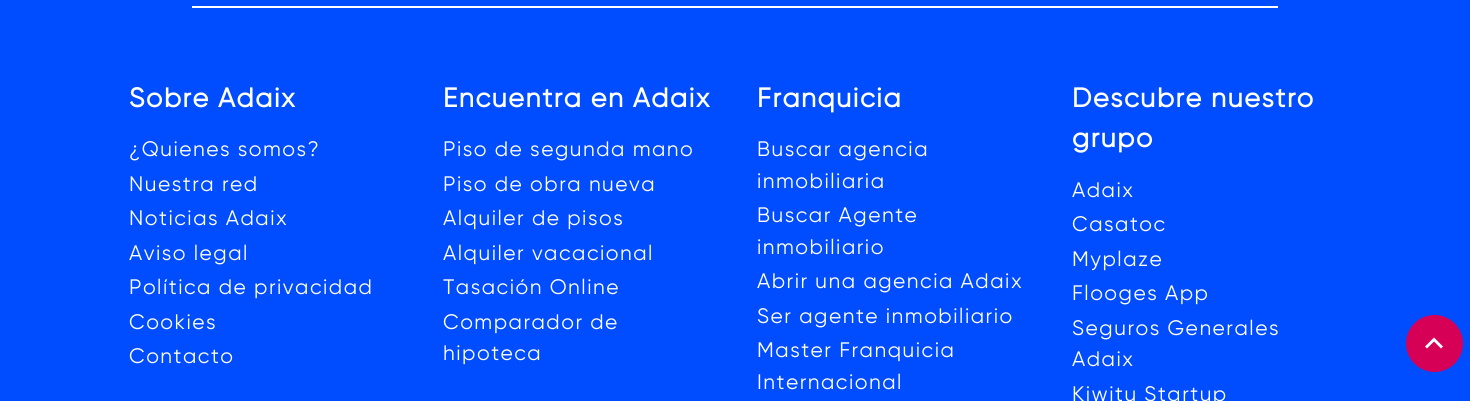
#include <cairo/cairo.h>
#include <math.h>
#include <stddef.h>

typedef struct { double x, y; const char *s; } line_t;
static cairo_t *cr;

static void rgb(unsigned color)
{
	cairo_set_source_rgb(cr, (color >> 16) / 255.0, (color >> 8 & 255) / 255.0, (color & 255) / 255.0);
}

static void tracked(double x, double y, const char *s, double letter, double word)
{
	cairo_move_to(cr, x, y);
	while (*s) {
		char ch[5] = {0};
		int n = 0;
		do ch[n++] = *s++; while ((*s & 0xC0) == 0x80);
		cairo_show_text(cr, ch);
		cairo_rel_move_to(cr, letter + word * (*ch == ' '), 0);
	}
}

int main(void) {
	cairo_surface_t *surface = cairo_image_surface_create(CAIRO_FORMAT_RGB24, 1470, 401);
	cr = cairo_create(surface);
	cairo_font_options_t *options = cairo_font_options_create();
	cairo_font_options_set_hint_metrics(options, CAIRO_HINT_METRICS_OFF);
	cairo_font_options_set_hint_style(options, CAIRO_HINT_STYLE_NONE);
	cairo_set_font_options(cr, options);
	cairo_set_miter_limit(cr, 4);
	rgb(0x004cff);
	cairo_paint(cr);
	rgb(0xffffff);
	cairo_rectangle(cr, 192, 6, 1086, 2);
	cairo_fill(cr);
	rgb(0xd60057);
	cairo_arc(cr, 1434.5, 343.5, 27.5, 0, 2 * M_PI);
	cairo_fill_preserve(cr);
	cairo_stroke(cr);
	rgb(0xffffff);
	cairo_new_path(cr);
	cairo_move_to(cr, 1427, 348.5);
	cairo_line_to(cr, 1434, 341.5);
	cairo_line_to(cr, 1441, 348.5);
	cairo_line_to(cr, 1443, 346.5);
	cairo_line_to(cr, 1434, 337.5);
	cairo_line_to(cr, 1425, 346.5);
	cairo_close_path(cr);
	cairo_fill(cr);
	cairo_select_font_face(cr, "Gilroy", CAIRO_FONT_SLANT_NORMAL, CAIRO_FONT_WEIGHT_BOLD);
	cairo_set_font_size(cr, 27);
	tracked(129, 107, "Sobre Adaix", 1.5, 0);
	cairo_select_font_face(cr, "Gilroy", CAIRO_FONT_SLANT_NORMAL, CAIRO_FONT_WEIGHT_NORMAL);
	cairo_set_font_size(cr, 21);
	{
		static const line_t items[] = {
			{129, 156, "¿Quienes somos?"},
			{129, 191, "Nuestra red"},
			{129, 225, "Noticias Adaix"},
			{129, 260, "Aviso legal"},
			{129, 294, "Política de privacidad"},
			{129, 329, "Cookies"},
			{129, 363, "Contacto"},
		};
		for (size_t i = 0; i < sizeof items / sizeof *items; i++) {
			tracked(items[i].x, items[i].y, items[i].s, 1.5, 0);
		}
	}
	cairo_select_font_face(cr, "Gilroy", CAIRO_FONT_SLANT_NORMAL, CAIRO_FONT_WEIGHT_BOLD);
	cairo_set_font_size(cr, 27);
	tracked(443, 107, "Encuentra en Adaix", 1.5, 0);
	cairo_select_font_face(cr, "Gilroy", CAIRO_FONT_SLANT_NORMAL, CAIRO_FONT_WEIGHT_NORMAL);
	cairo_set_font_size(cr, 21);
	{
		static const line_t items[] = {
			{443, 156, "Piso de segunda mano"},
			{443, 191, "Piso de obra nueva"},
			{443, 225, "Alquiler de pisos"},
			{443, 260, "Alquiler vacacional"},
			{443, 294, "Tasación Online"},
			{443, 329, "Comparador de"},
			{443, 360, "hipoteca"},
		};
		for (size_t i = 0; i < sizeof items / sizeof *items; i++) {
			tracked(items[i].x, items[i].y, items[i].s, 1.5, 0);
		}
	}
	cairo_select_font_face(cr, "Gilroy", CAIRO_FONT_SLANT_NORMAL, CAIRO_FONT_WEIGHT_BOLD);
	cairo_set_font_size(cr, 27);
	tracked(757, 107, "Franquicia", 1.5, 0);
	cairo_select_font_face(cr, "Gilroy", CAIRO_FONT_SLANT_NORMAL, CAIRO_FONT_WEIGHT_NORMAL);
	cairo_set_font_size(cr, 21);
	{
		static const line_t items[] = {
			{757, 156, "Buscar agencia"},
			{757, 188, "inmobiliaria"},
			{757, 222, "Buscar Agente"},
			{757, 254, "inmobiliario"},
			{757, 288, "Abrir una agencia Adaix"},
			{757, 323, "Ser agente inmobiliario"},
			{757, 357, "Master Franquicia"},
			{757, 389, "Internacional"},
		};
		for (size_t i = 0; i < sizeof items / sizeof *items; i++) {
			tracked(items[i].x, items[i].y, items[i].s, 1.5, 0);
		}
	}
	cairo_select_font_face(cr, "Gilroy", CAIRO_FONT_SLANT_NORMAL, CAIRO_FONT_WEIGHT_BOLD);
	cairo_set_font_size(cr, 27);
	tracked(1072, 107, "Descubre nuestro", 1.5, 0);
	tracked(1072, 147, "grupo", 1.5, 0);
	cairo_select_font_face(cr, "Gilroy", CAIRO_FONT_SLANT_NORMAL, CAIRO_FONT_WEIGHT_NORMAL);
	cairo_set_font_size(cr, 21);
	{
		static const line_t items[] = {
			{1072, 197, "Adaix"},
			{1072, 231, "Casatoc"},
			{1072, 266, "Myplaze"},
			{1072, 300, "Flooges App"},
			{1072, 335, "Seguros Generales"},
			{1072, 366, "Adaix"},
			{1072, 401, "Kiwitu Startup"},
		};
		for (size_t i = 0; i < sizeof items / sizeof *items; i++) {
			tracked(items[i].x, items[i].y, items[i].s, 1.5, 0);
		}
	}
	cairo_surface_write_to_png(surface, "page.png");
	cairo_font_options_destroy(options);
	cairo_destroy(cr);
	cairo_surface_destroy(surface);
	return 0;
}
